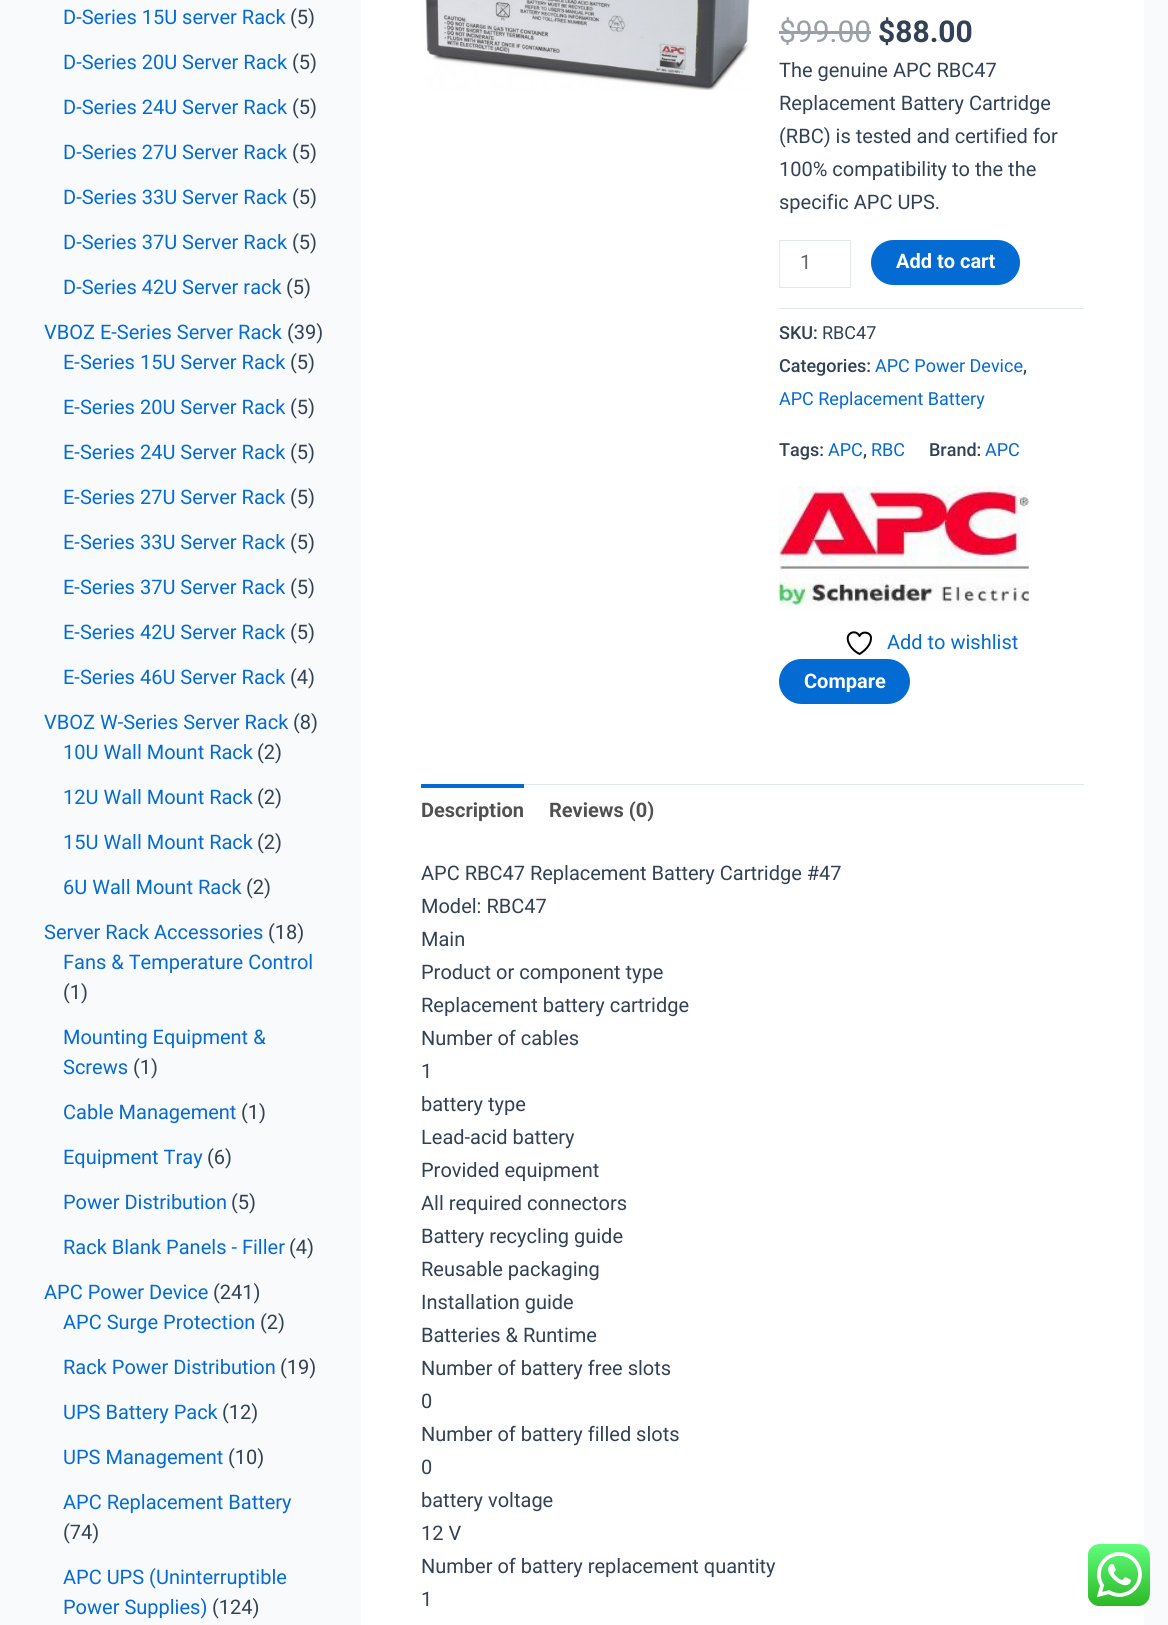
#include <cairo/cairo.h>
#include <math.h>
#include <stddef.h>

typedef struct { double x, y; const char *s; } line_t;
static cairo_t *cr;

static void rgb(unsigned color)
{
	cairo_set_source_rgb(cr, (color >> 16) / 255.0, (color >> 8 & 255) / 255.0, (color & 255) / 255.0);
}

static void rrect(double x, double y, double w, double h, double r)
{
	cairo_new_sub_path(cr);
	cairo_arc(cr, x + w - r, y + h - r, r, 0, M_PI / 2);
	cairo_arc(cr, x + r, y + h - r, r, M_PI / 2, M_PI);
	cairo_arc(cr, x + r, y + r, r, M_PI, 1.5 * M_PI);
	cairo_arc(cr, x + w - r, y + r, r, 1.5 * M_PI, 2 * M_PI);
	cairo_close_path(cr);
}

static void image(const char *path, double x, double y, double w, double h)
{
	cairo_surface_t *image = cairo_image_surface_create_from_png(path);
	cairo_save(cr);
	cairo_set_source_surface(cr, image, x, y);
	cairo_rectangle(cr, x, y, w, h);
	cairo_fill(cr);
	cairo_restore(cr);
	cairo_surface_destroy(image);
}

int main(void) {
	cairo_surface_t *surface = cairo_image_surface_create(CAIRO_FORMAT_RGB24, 1168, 1625);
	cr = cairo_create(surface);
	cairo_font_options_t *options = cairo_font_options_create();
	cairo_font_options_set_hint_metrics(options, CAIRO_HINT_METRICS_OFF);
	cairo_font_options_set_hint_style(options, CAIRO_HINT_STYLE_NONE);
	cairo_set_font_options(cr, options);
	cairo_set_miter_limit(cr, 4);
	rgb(0xf9fafb);
	cairo_paint(cr);
	rgb(0xffffff);
	cairo_rectangle(cr, 361, 0, 783, 1625);
	cairo_fill(cr);
	image("img/1.png", 423, 0, 328, 91);
	rgb(0x99a0aa);
	cairo_rectangle(cr, 779, 31, 92, 3);
	cairo_fill(cr);
	cairo_rectangle(cr, 779.5, 240.5, 71, 47);
	rgb(0xe2e8f0);
	cairo_set_line_width(cr, 1);
	cairo_stroke(cr);
	rgb(0x046bd2);
	rrect(871, 240, 149, 45, 22.5);
	cairo_fill(cr);
	rgb(0xe2e8f0);
	cairo_rectangle(cr, 779, 308, 305, 1);
	cairo_fill(cr);
	image("img/2.png", 778, 486, 251, 125);
	cairo_new_path(cr);
	cairo_move_to(cr, 871, 638);
	cairo_curve_to(cr, 871, 632, 862, 630.5, 859.5, 636);
	cairo_curve_to(cr, 856, 628.5, 843, 633, 849.5, 644.5);
	cairo_curve_to(cr, 851.5, 648.5, 855.5, 652, 859.5, 654);
	cairo_curve_to(cr, 859.5, 654, 871, 647.5, 871, 638);
	cairo_close_path(cr);
	rgb(0x000000);
	cairo_set_line_width(cr, 2);
	cairo_set_line_cap(cr, CAIRO_LINE_CAP_ROUND);
	cairo_set_line_join(cr, CAIRO_LINE_JOIN_ROUND);
	cairo_stroke(cr);
	rgb(0x046bd2);
	rrect(779, 659, 131, 45, 22.5);
	cairo_fill(cr);
	rgb(0xe2e8f0);
	cairo_rectangle(cr, 524, 784, 560, 1);
	cairo_fill(cr);
	rgb(0x046bd2);
	cairo_rectangle(cr, 421, 784, 103, 4);
	cairo_fill(cr);
	image("img/3.png", 1088, 1544, 62, 62);
	cairo_select_font_face(cr, "Roboto", CAIRO_FONT_SLANT_NORMAL, CAIRO_FONT_WEIGHT_NORMAL);
	cairo_set_font_size(cr, 20);
	cairo_move_to(cr, 63, 24);
	cairo_show_text(cr, "D-Series 15U server Rack");
	rgb(0x334155);
	cairo_move_to(cr, 290, 24);
	cairo_show_text(cr, "(5)");
	rgb(0x046bd2);
	cairo_move_to(cr, 63, 69);
	cairo_show_text(cr, "D-Series 20U Server Rack");
	rgb(0x334155);
	cairo_move_to(cr, 292, 69);
	cairo_show_text(cr, "(5)");
	rgb(0x046bd2);
	cairo_move_to(cr, 63, 114);
	cairo_show_text(cr, "D-Series 24U Server Rack");
	rgb(0x334155);
	cairo_move_to(cr, 292, 114);
	cairo_show_text(cr, "(5)");
	rgb(0x046bd2);
	cairo_move_to(cr, 63, 159);
	cairo_show_text(cr, "D-Series 27U Server Rack");
	rgb(0x334155);
	cairo_move_to(cr, 292, 159);
	cairo_show_text(cr, "(5)");
	rgb(0x046bd2);
	cairo_move_to(cr, 63, 204);
	cairo_show_text(cr, "D-Series 33U Server Rack");
	rgb(0x334155);
	cairo_move_to(cr, 292, 204);
	cairo_show_text(cr, "(5)");
	rgb(0x046bd2);
	cairo_move_to(cr, 63, 249);
	cairo_show_text(cr, "D-Series 37U Server Rack");
	rgb(0x334155);
	cairo_move_to(cr, 292, 249);
	cairo_show_text(cr, "(5)");
	rgb(0x046bd2);
	cairo_move_to(cr, 63, 294);
	cairo_show_text(cr, "D-Series 42U Server rack");
	rgb(0x334155);
	cairo_move_to(cr, 286, 294);
	cairo_show_text(cr, "(5)");
	rgb(0x046bd2);
	cairo_move_to(cr, 44, 339);
	cairo_show_text(cr, "VBOZ E-Series Server Rack");
	rgb(0x334155);
	cairo_move_to(cr, 287, 339);
	cairo_show_text(cr, "(39)");
	rgb(0x046bd2);
	cairo_move_to(cr, 63, 369);
	cairo_show_text(cr, "E-Series 15U Server Rack");
	rgb(0x334155);
	cairo_move_to(cr, 290, 369);
	cairo_show_text(cr, "(5)");
	rgb(0x046bd2);
	cairo_move_to(cr, 63, 414);
	cairo_show_text(cr, "E-Series 20U Server Rack");
	rgb(0x334155);
	cairo_move_to(cr, 290, 414);
	cairo_show_text(cr, "(5)");
	rgb(0x046bd2);
	cairo_move_to(cr, 63, 459);
	cairo_show_text(cr, "E-Series 24U Server Rack");
	rgb(0x334155);
	cairo_move_to(cr, 290, 459);
	cairo_show_text(cr, "(5)");
	rgb(0x046bd2);
	cairo_move_to(cr, 63, 504);
	cairo_show_text(cr, "E-Series 27U Server Rack");
	rgb(0x334155);
	cairo_move_to(cr, 290, 504);
	cairo_show_text(cr, "(5)");
	rgb(0x046bd2);
	cairo_move_to(cr, 63, 549);
	cairo_show_text(cr, "E-Series 33U Server Rack");
	rgb(0x334155);
	cairo_move_to(cr, 290, 549);
	cairo_show_text(cr, "(5)");
	rgb(0x046bd2);
	cairo_move_to(cr, 63, 594);
	cairo_show_text(cr, "E-Series 37U Server Rack");
	rgb(0x334155);
	cairo_move_to(cr, 290, 594);
	cairo_show_text(cr, "(5)");
	rgb(0x046bd2);
	cairo_move_to(cr, 63, 639);
	cairo_show_text(cr, "E-Series 42U Server Rack");
	rgb(0x334155);
	cairo_move_to(cr, 290, 639);
	cairo_show_text(cr, "(5)");
	rgb(0x046bd2);
	cairo_move_to(cr, 63, 684);
	cairo_show_text(cr, "E-Series 46U Server Rack");
	rgb(0x334155);
	cairo_move_to(cr, 290, 684);
	cairo_show_text(cr, "(4)");
	rgb(0x046bd2);
	cairo_move_to(cr, 44, 729);
	cairo_show_text(cr, "VBOZ W-Series Server Rack");
	rgb(0x334155);
	cairo_move_to(cr, 293, 729);
	cairo_show_text(cr, "(8)");
	rgb(0x046bd2);
	cairo_move_to(cr, 63, 759);
	cairo_show_text(cr, "10U Wall Mount Rack");
	rgb(0x334155);
	cairo_move_to(cr, 257, 759);
	cairo_show_text(cr, "(2)");
	rgb(0x046bd2);
	cairo_move_to(cr, 63, 804);
	cairo_show_text(cr, "12U Wall Mount Rack");
	rgb(0x334155);
	cairo_move_to(cr, 257, 804);
	cairo_show_text(cr, "(2)");
	rgb(0x046bd2);
	cairo_move_to(cr, 63, 849);
	cairo_show_text(cr, "15U Wall Mount Rack");
	rgb(0x334155);
	cairo_move_to(cr, 257, 849);
	cairo_show_text(cr, "(2)");
	rgb(0x046bd2);
	cairo_move_to(cr, 63, 894);
	cairo_show_text(cr, "6U Wall Mount Rack");
	rgb(0x334155);
	cairo_move_to(cr, 246, 894);
	cairo_show_text(cr, "(2)");
	rgb(0x046bd2);
	cairo_move_to(cr, 44, 939);
	cairo_show_text(cr, "Server Rack Accessories");
	rgb(0x334155);
	cairo_move_to(cr, 268, 939);
	cairo_show_text(cr, "(18)");
	rgb(0x046bd2);
	cairo_move_to(cr, 63, 969);
	cairo_show_text(cr, "Fans & Temperature Control");
	rgb(0x334155);
	cairo_move_to(cr, 63, 999);
	cairo_show_text(cr, "(1)");
	rgb(0x046bd2);
	cairo_move_to(cr, 63, 1044);
	cairo_show_text(cr, "Mounting Equipment &");
	cairo_move_to(cr, 63, 1074);
	cairo_show_text(cr, "Screws");
	rgb(0x334155);
	cairo_move_to(cr, 133, 1074);
	cairo_show_text(cr, "(1)");
	rgb(0x046bd2);
	cairo_move_to(cr, 63, 1119);
	cairo_show_text(cr, "Cable Management");
	rgb(0x334155);
	cairo_move_to(cr, 241, 1119);
	cairo_show_text(cr, "(1)");
	rgb(0x046bd2);
	cairo_move_to(cr, 63, 1164);
	cairo_show_text(cr, "Equipment Tray");
	rgb(0x334155);
	cairo_move_to(cr, 207, 1164);
	cairo_show_text(cr, "(6)");
	rgb(0x046bd2);
	cairo_move_to(cr, 63, 1209);
	cairo_show_text(cr, "Power Distribution");
	rgb(0x334155);
	cairo_move_to(cr, 231, 1209);
	cairo_show_text(cr, "(5)");
	rgb(0x046bd2);
	cairo_move_to(cr, 63, 1254);
	cairo_show_text(cr, "Rack Blank Panels - Filler");
	rgb(0x334155);
	cairo_move_to(cr, 289, 1254);
	cairo_show_text(cr, "(4)");
	rgb(0x046bd2);
	cairo_move_to(cr, 44, 1299);
	cairo_show_text(cr, "APC Power Device");
	rgb(0x334155);
	cairo_move_to(cr, 213, 1299);
	cairo_show_text(cr, "(241)");
	rgb(0x046bd2);
	cairo_move_to(cr, 63, 1329);
	cairo_show_text(cr, "APC Surge Protection");
	rgb(0x334155);
	cairo_move_to(cr, 260, 1329);
	cairo_show_text(cr, "(2)");
	rgb(0x046bd2);
	cairo_move_to(cr, 63, 1374);
	cairo_show_text(cr, "Rack Power Distribution");
	rgb(0x334155);
	cairo_move_to(cr, 280, 1374);
	cairo_show_text(cr, "(19)");
	rgb(0x046bd2);
	cairo_move_to(cr, 63, 1419);
	cairo_show_text(cr, "UPS Battery Pack");
	rgb(0x334155);
	cairo_move_to(cr, 222, 1419);
	cairo_show_text(cr, "(12)");
	rgb(0x046bd2);
	cairo_move_to(cr, 63, 1464);
	cairo_show_text(cr, "UPS Management");
	rgb(0x334155);
	cairo_move_to(cr, 228, 1464);
	cairo_show_text(cr, "(10)");
	rgb(0x046bd2);
	cairo_move_to(cr, 63, 1509);
	cairo_show_text(cr, "APC Replacement Battery");
	rgb(0x334155);
	cairo_move_to(cr, 63, 1539);
	cairo_show_text(cr, "(74)");
	rgb(0x046bd2);
	cairo_move_to(cr, 63, 1584);
	cairo_show_text(cr, "APC UPS (Uninterruptible");
	cairo_move_to(cr, 63, 1614);
	cairo_show_text(cr, "Power Supplies)");
	rgb(0x334155);
	cairo_move_to(cr, 212, 1614);
	cairo_show_text(cr, "(124)");
	cairo_set_font_size(cr, 30);
	rgb(0x99a0aa);
	cairo_move_to(cr, 779, 42);
	cairo_show_text(cr, "$99.00");
	cairo_select_font_face(cr, "Roboto", CAIRO_FONT_SLANT_NORMAL, CAIRO_FONT_WEIGHT_BOLD);
	rgb(0x334155);
	cairo_move_to(cr, 878, 42);
	cairo_show_text(cr, "$88.00");
	cairo_select_font_face(cr, "Roboto", CAIRO_FONT_SLANT_NORMAL, CAIRO_FONT_WEIGHT_NORMAL);
	cairo_set_font_size(cr, 20);
	{
		static const line_t items[] = {
			{779, 77, "The genuine APC RBC47"},
			{779, 110, "Replacement Battery Cartridge"},
			{779, 143, "(RBC) is tested and certified for"},
			{779, 176, "100% compatibility to the the"},
			{779, 209, "specific APC UPS."},
		};
		for (size_t i = 0; i < sizeof items / sizeof *items; i++) {
			cairo_move_to(cr, items[i].x, items[i].y);
			cairo_show_text(cr, items[i].s);
		}
	}
	rgb(0x666666);
	cairo_move_to(cr, 800, 269);
	cairo_show_text(cr, "1");
	cairo_select_font_face(cr, "Roboto", CAIRO_FONT_SLANT_NORMAL, CAIRO_FONT_WEIGHT_BOLD);
	rgb(0xffffff);
	cairo_move_to(cr, 896, 268);
	cairo_show_text(cr, "Add to cart");
	cairo_select_font_face(cr, "Roboto Medium", CAIRO_FONT_SLANT_NORMAL, CAIRO_FONT_WEIGHT_NORMAL);
	cairo_set_font_size(cr, 18);
	rgb(0x334155);
	cairo_move_to(cr, 779, 339);
	cairo_show_text(cr, "SKU:");
	cairo_select_font_face(cr, "Roboto", CAIRO_FONT_SLANT_NORMAL, CAIRO_FONT_WEIGHT_NORMAL);
	cairo_move_to(cr, 822, 339);
	cairo_show_text(cr, "RBC47");
	cairo_select_font_face(cr, "Roboto Medium", CAIRO_FONT_SLANT_NORMAL, CAIRO_FONT_WEIGHT_NORMAL);
	cairo_move_to(cr, 779, 372);
	cairo_show_text(cr, "Categories:");
	cairo_select_font_face(cr, "Roboto", CAIRO_FONT_SLANT_NORMAL, CAIRO_FONT_WEIGHT_NORMAL);
	rgb(0x046bd2);
	cairo_move_to(cr, 875, 372);
	cairo_show_text(cr, "APC Power Device");
	cairo_select_font_face(cr, "Roboto Medium", CAIRO_FONT_SLANT_NORMAL, CAIRO_FONT_WEIGHT_NORMAL);
	rgb(0x334155);
	cairo_move_to(cr, 1023, 372);
	cairo_show_text(cr, ",");
	cairo_select_font_face(cr, "Roboto", CAIRO_FONT_SLANT_NORMAL, CAIRO_FONT_WEIGHT_NORMAL);
	rgb(0x046bd2);
	cairo_move_to(cr, 779, 405);
	cairo_show_text(cr, "APC Replacement Battery");
	cairo_select_font_face(cr, "Roboto Medium", CAIRO_FONT_SLANT_NORMAL, CAIRO_FONT_WEIGHT_NORMAL);
	rgb(0x334155);
	cairo_move_to(cr, 779, 456);
	cairo_show_text(cr, "Tags:");
	cairo_select_font_face(cr, "Roboto", CAIRO_FONT_SLANT_NORMAL, CAIRO_FONT_WEIGHT_NORMAL);
	rgb(0x046bd2);
	cairo_move_to(cr, 828, 456);
	cairo_show_text(cr, "APC");
	cairo_select_font_face(cr, "Roboto Medium", CAIRO_FONT_SLANT_NORMAL, CAIRO_FONT_WEIGHT_NORMAL);
	rgb(0x334155);
	cairo_move_to(cr, 863, 456);
	cairo_show_text(cr, ",");
	cairo_select_font_face(cr, "Roboto", CAIRO_FONT_SLANT_NORMAL, CAIRO_FONT_WEIGHT_NORMAL);
	rgb(0x046bd2);
	cairo_move_to(cr, 871, 456);
	cairo_show_text(cr, "RBC");
	cairo_select_font_face(cr, "Roboto Medium", CAIRO_FONT_SLANT_NORMAL, CAIRO_FONT_WEIGHT_NORMAL);
	rgb(0x334155);
	cairo_move_to(cr, 929, 456);
	cairo_show_text(cr, "Brand:");
	cairo_select_font_face(cr, "Roboto", CAIRO_FONT_SLANT_NORMAL, CAIRO_FONT_WEIGHT_NORMAL);
	rgb(0x046bd2);
	cairo_move_to(cr, 985, 456);
	cairo_show_text(cr, "APC");
	cairo_set_font_size(cr, 20);
	cairo_move_to(cr, 887, 649);
	cairo_show_text(cr, "Add to wishlist");
	cairo_select_font_face(cr, "Roboto", CAIRO_FONT_SLANT_NORMAL, CAIRO_FONT_WEIGHT_BOLD);
	rgb(0xffffff);
	cairo_move_to(cr, 804, 688);
	cairo_show_text(cr, "Compare");
	rgb(0x515151);
	cairo_move_to(cr, 421, 817);
	cairo_show_text(cr, "Description");
	cairo_move_to(cr, 549, 817);
	cairo_show_text(cr, "Reviews (0)");
	cairo_select_font_face(cr, "Roboto", CAIRO_FONT_SLANT_NORMAL, CAIRO_FONT_WEIGHT_NORMAL);
	rgb(0x334155);
	{
		static const line_t items[] = {
			{421, 880, "APC RBC47 Replacement Battery Cartridge #47"},
			{421, 913, "Model: RBC47"},
			{421, 946, "Main"},
			{421, 979, "Product or component type"},
			{421, 1012, "Replacement battery cartridge"},
			{421, 1045, "Number of cables"},
			{421, 1078, "1"},
			{421, 1111, "battery type"},
			{421, 1144, "Lead-acid battery"},
			{421, 1177, "Provided equipment"},
			{421, 1210, "All required connectors"},
			{421, 1243, "Battery recycling guide"},
			{421, 1276, "Reusable packaging"},
			{421, 1309, "Installation guide"},
			{421, 1342, "Batteries & Runtime"},
			{421, 1375, "Number of battery free slots"},
			{421, 1408, "0"},
			{421, 1441, "Number of battery filled slots"},
			{421, 1474, "0"},
			{421, 1507, "battery voltage"},
			{421, 1540, "12 V"},
			{421, 1573, "Number of battery replacement quantity"},
			{421, 1606, "1"},
		};
		for (size_t i = 0; i < sizeof items / sizeof *items; i++) {
			cairo_move_to(cr, items[i].x, items[i].y);
			cairo_show_text(cr, items[i].s);
		}
	}
	cairo_surface_write_to_png(surface, "page.png");
	cairo_font_options_destroy(options);
	cairo_destroy(cr);
	cairo_surface_destroy(surface);
	return 0;
}
